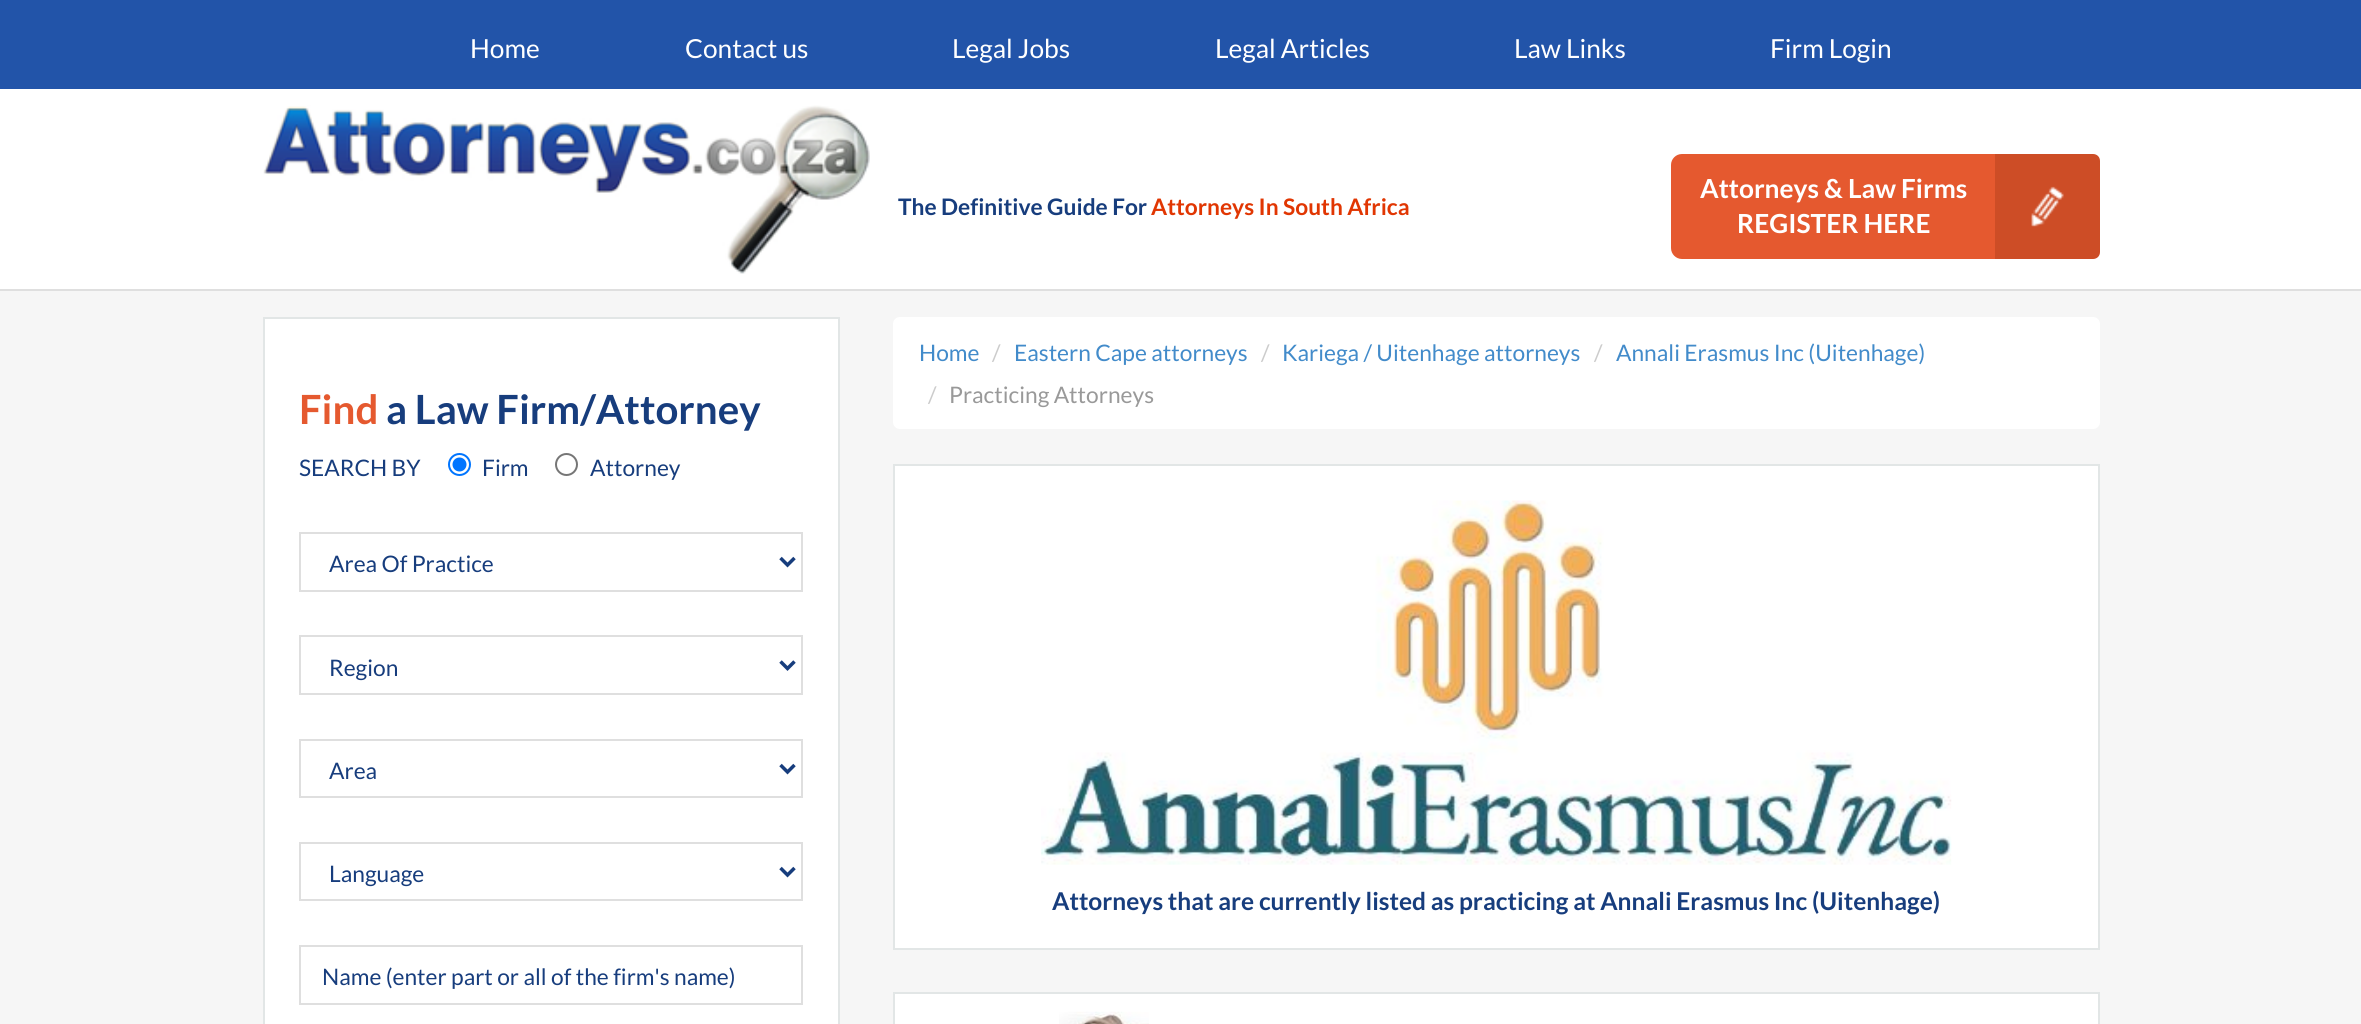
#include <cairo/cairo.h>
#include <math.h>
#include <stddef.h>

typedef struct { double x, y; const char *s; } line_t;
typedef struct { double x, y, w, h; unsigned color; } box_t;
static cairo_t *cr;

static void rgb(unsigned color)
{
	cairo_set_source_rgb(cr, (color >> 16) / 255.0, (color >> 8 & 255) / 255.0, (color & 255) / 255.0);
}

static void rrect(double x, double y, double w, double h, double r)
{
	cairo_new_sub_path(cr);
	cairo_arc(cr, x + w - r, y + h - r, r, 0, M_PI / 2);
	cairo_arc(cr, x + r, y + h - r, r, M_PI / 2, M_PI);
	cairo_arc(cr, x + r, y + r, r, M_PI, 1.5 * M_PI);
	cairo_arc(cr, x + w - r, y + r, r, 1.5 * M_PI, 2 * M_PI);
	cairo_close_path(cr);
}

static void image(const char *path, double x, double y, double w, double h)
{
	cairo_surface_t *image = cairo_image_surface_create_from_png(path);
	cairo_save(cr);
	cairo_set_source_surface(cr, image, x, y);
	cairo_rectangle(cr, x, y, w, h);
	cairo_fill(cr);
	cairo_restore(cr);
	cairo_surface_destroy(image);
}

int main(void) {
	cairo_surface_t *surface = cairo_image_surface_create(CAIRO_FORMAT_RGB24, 2361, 1024);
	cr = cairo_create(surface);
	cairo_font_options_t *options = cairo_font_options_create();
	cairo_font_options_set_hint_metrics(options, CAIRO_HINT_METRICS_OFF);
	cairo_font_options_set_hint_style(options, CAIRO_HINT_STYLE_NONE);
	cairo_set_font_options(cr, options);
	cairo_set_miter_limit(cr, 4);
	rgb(0xf6f6f6);
	cairo_paint(cr);
	{
		static const box_t items[] = {
			{0, 89, 2361, 200, 0xffffff},
			{0, 289, 2361, 2, 0xdfdfdf},
			{0, 0, 2361, 89, 0x2254a9},
		};
		for (size_t i = 0; i < sizeof items / sizeof *items; i++) {
			rgb(items[i].color);
			cairo_rectangle(cr, items[i].x, items[i].y, items[i].w, items[i].h);
			cairo_fill(cr);
		}
	}
	image("img/1.png", 263, 105, 607, 169);
	rgb(0xe5592f);
	rrect(1671, 154, 429, 105, 11);
	cairo_fill(cr);
	rgb(0xcd4d26);
	cairo_new_path(cr);
	cairo_move_to(cr, 1995, 154);
	cairo_line_to(cr, 2093, 154);
	cairo_curve_to(cr, 2097, 154, 2100, 157, 2100, 161);
	cairo_line_to(cr, 2100, 252);
	cairo_curve_to(cr, 2100, 256, 2097, 259, 2093, 259);
	cairo_line_to(cr, 1995, 259);
	cairo_close_path(cr);
	cairo_fill(cr);
	image("img/2.png", 2031, 186, 33, 41);
	rgb(0xffffff);
	cairo_rectangle(cr, 264, 318, 575, 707);
	cairo_fill_preserve(cr);
	rgb(0xe2e6e6);
	cairo_stroke(cr);
	cairo_arc(cr, 459.5, 464.5, 10.5, 0, 2 * M_PI);
	rgb(0x0075ff);
	cairo_stroke(cr);
	cairo_arc(cr, 459.5, 464.5, 7, 0, 2 * M_PI);
	cairo_fill(cr);
	cairo_arc(cr, 566.5, 464.5, 10.5, 0, 2 * M_PI);
	rgb(0x767676);
	cairo_stroke(cr);
	cairo_rectangle(cr, 300, 533, 502, 58);
	rgb(0xdfdfdf);
	cairo_stroke(cr);
	cairo_new_path(cr);
	cairo_move_to(cr, 780.5, 558);
	cairo_line_to(cr, 787.5, 565);
	cairo_line_to(cr, 794.5, 558);
	rgb(0x173d7d);
	cairo_set_line_width(cr, 3.5);
	cairo_stroke(cr);
	cairo_rectangle(cr, 300, 636, 502, 58);
	rgb(0xdfdfdf);
	cairo_set_line_width(cr, 2);
	cairo_stroke(cr);
	cairo_new_path(cr);
	cairo_move_to(cr, 780.5, 661.5);
	cairo_line_to(cr, 787.5, 668.5);
	cairo_line_to(cr, 794.5, 661.5);
	rgb(0x173d7d);
	cairo_set_line_width(cr, 3.5);
	cairo_stroke(cr);
	cairo_rectangle(cr, 300, 740, 502, 57);
	rgb(0xdfdfdf);
	cairo_set_line_width(cr, 2);
	cairo_stroke(cr);
	cairo_new_path(cr);
	cairo_move_to(cr, 780.5, 765);
	cairo_line_to(cr, 787.5, 772);
	cairo_line_to(cr, 794.5, 765);
	rgb(0x173d7d);
	cairo_set_line_width(cr, 3.5);
	cairo_stroke(cr);
	cairo_rectangle(cr, 300, 843, 502, 57);
	rgb(0xdfdfdf);
	cairo_set_line_width(cr, 2);
	cairo_stroke(cr);
	cairo_new_path(cr);
	cairo_move_to(cr, 780.5, 868);
	cairo_line_to(cr, 787.5, 875);
	cairo_line_to(cr, 794.5, 868);
	rgb(0x173d7d);
	cairo_set_line_width(cr, 3.5);
	cairo_stroke(cr);
	cairo_rectangle(cr, 300, 946, 502, 58);
	rgb(0xdfdfdf);
	cairo_set_line_width(cr, 2);
	cairo_stroke(cr);
	rgb(0xffffff);
	rrect(893, 317, 1207, 112, 7);
	cairo_fill(cr);
	cairo_rectangle(cr, 894, 465, 1205, 484);
	cairo_fill_preserve(cr);
	rgb(0xe2e6e6);
	cairo_stroke(cr);
	image("img/3.png", 1041, 500, 911, 365);
	rgb(0xffffff);
	cairo_rectangle(cr, 894, 993, 1205, 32);
	cairo_fill_preserve(cr);
	rgb(0xe2e6e6);
	cairo_stroke(cr);
	image("img/4.png", 1059, 1011, 90, 13);
	cairo_select_font_face(cr, "Lato", CAIRO_FONT_SLANT_NORMAL, CAIRO_FONT_WEIGHT_NORMAL);
	cairo_set_font_size(cr, 26.25);
	rgb(0xffffff);
	{
		static const line_t items[] = {
			{470, 58, "Home"},
			{685, 58, "Contact us"},
			{952, 58, "Legal Jobs"},
			{1215, 58, "Legal Articles"},
			{1514, 58, "Law Links"},
			{1770, 58, "Firm Login"},
		};
		for (size_t i = 0; i < sizeof items / sizeof *items; i++) {
			cairo_move_to(cr, items[i].x, items[i].y);
			cairo_show_text(cr, items[i].s);
		}
	}
	cairo_select_font_face(cr, "Lato", CAIRO_FONT_SLANT_NORMAL, CAIRO_FONT_WEIGHT_BOLD);
	cairo_set_font_size(cr, 22.75);
	rgb(0x173d7d);
	cairo_move_to(cr, 898, 215);
	cairo_show_text(cr, "The Definitive Guide For");
	rgb(0xe13602);
	cairo_move_to(cr, 1151, 215);
	cairo_show_text(cr, "Attorneys In South Africa");
	cairo_set_font_size(cr, 26.25);
	rgb(0xffffff);
	cairo_move_to(cr, 1700, 198);
	cairo_show_text(cr, "Attorneys & Law Firms");
	cairo_move_to(cr, 1737, 233);
	cairo_show_text(cr, "REGISTER HERE");
	cairo_set_font_size(cr, 40.25);
	rgb(0xe5592f);
	cairo_move_to(cr, 299, 424);
	cairo_show_text(cr, "Find");
	rgb(0x173d7d);
	cairo_move_to(cr, 386, 424);
	cairo_show_text(cr, "a Law Firm/Attorney");
	cairo_select_font_face(cr, "Lato", CAIRO_FONT_SLANT_NORMAL, CAIRO_FONT_WEIGHT_NORMAL);
	cairo_set_font_size(cr, 22.75);
	{
		static const line_t items[] = {
			{299, 476, "SEARCH BY"},
			{482, 476, "Firm"},
			{590, 476, "Attorney"},
			{329, 572, "Area Of Practice"},
			{329, 676, "Region"},
			{329, 779, "Area"},
			{329, 882, "Language"},
			{322, 985, "Name (enter part or all of the firm's name)"},
		};
		for (size_t i = 0; i < sizeof items / sizeof *items; i++) {
			cairo_move_to(cr, items[i].x, items[i].y);
			cairo_show_text(cr, items[i].s);
		}
	}
	rgb(0x428bca);
	cairo_move_to(cr, 919, 361);
	cairo_show_text(cr, "Home");
	rgb(0xcccccc);
	cairo_move_to(cr, 992, 361);
	cairo_show_text(cr, "/");
	rgb(0x428bca);
	cairo_move_to(cr, 1014, 361);
	cairo_show_text(cr, "Eastern Cape attorneys");
	rgb(0xcccccc);
	cairo_move_to(cr, 1261, 361);
	cairo_show_text(cr, "/");
	rgb(0x428bca);
	cairo_move_to(cr, 1282, 361);
	cairo_show_text(cr, "Kariega / Uitenhage attorneys");
	rgb(0xcccccc);
	cairo_move_to(cr, 1594, 361);
	cairo_show_text(cr, "/");
	rgb(0x428bca);
	cairo_move_to(cr, 1616, 361);
	cairo_show_text(cr, "Annali Erasmus Inc (Uitenhage)");
	rgb(0xcccccc);
	cairo_move_to(cr, 928, 403);
	cairo_show_text(cr, "/");
	rgb(0x999999);
	cairo_move_to(cr, 949, 403);
	cairo_show_text(cr, "Practicing Attorneys");
	cairo_select_font_face(cr, "Lato", CAIRO_FONT_SLANT_NORMAL, CAIRO_FONT_WEIGHT_BOLD);
	cairo_set_font_size(cr, 24.5);
	rgb(0x173d7d);
	cairo_move_to(cr, 1052, 910);
	cairo_show_text(cr, "Attorneys that are currently listed as practicing at Annali Erasmus Inc (Uitenhage)");
	cairo_surface_write_to_png(surface, "page.png");
	cairo_font_options_destroy(options);
	cairo_destroy(cr);
	cairo_surface_destroy(surface);
	return 0;
}
